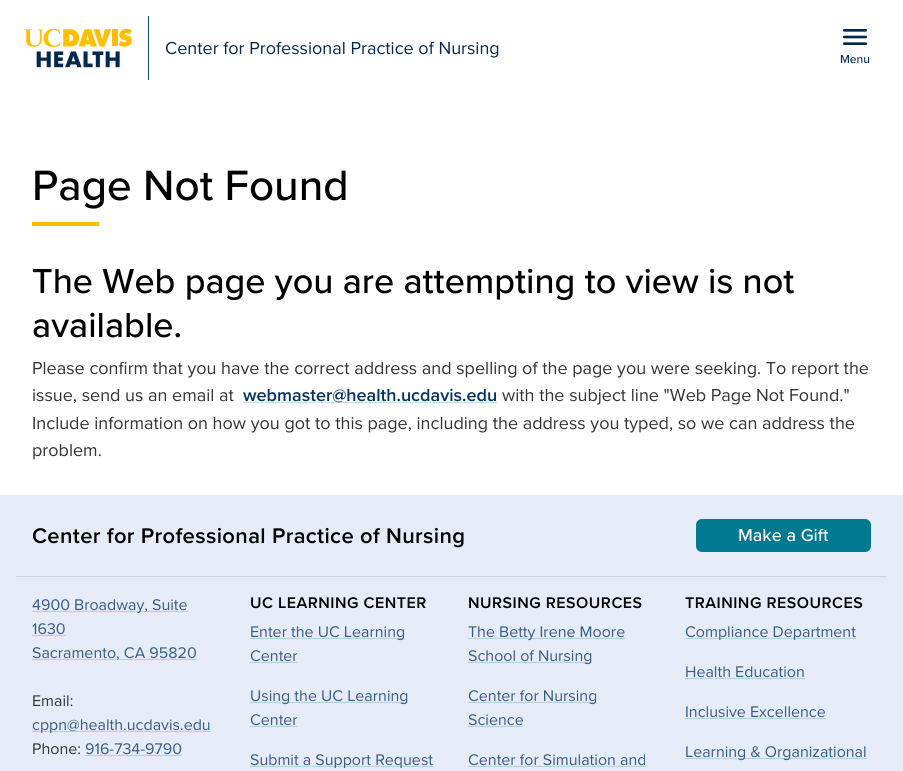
#include <cairo/cairo.h>
#include <math.h>
#include <stddef.h>

typedef struct { double x, y; const char *s; } line_t;
typedef struct { double x, y, w, h; unsigned color; } box_t;
static cairo_t *cr;

static void rgb(unsigned color)
{
	cairo_set_source_rgb(cr, (color >> 16) / 255.0, (color >> 8 & 255) / 255.0, (color & 255) / 255.0);
}

static void tracked(double x, double y, const char *s, double letter, double word)
{
	cairo_move_to(cr, x, y);
	while (*s) {
		char ch[5] = {0};
		int n = 0;
		do ch[n++] = *s++; while ((*s & 0xC0) == 0x80);
		cairo_show_text(cr, ch);
		cairo_rel_move_to(cr, letter + word * (*ch == ' '), 0);
	}
}

static void rrect(double x, double y, double w, double h, double r)
{
	cairo_new_sub_path(cr);
	cairo_arc(cr, x + w - r, y + h - r, r, 0, M_PI / 2);
	cairo_arc(cr, x + r, y + h - r, r, M_PI / 2, M_PI);
	cairo_arc(cr, x + r, y + r, r, M_PI, 1.5 * M_PI);
	cairo_arc(cr, x + w - r, y + r, r, 1.5 * M_PI, 2 * M_PI);
	cairo_close_path(cr);
}

static void image(const char *path, double x, double y, double w, double h)
{
	cairo_surface_t *image = cairo_image_surface_create_from_png(path);
	cairo_save(cr);
	cairo_set_source_surface(cr, image, x, y);
	cairo_rectangle(cr, x, y, w, h);
	cairo_fill(cr);
	cairo_restore(cr);
	cairo_surface_destroy(image);
}

int main(void) {
	cairo_surface_t *surface = cairo_image_surface_create(CAIRO_FORMAT_RGB24, 903, 771);
	cr = cairo_create(surface);
	cairo_font_options_t *options = cairo_font_options_create();
	cairo_font_options_set_hint_metrics(options, CAIRO_HINT_METRICS_OFF);
	cairo_font_options_set_hint_style(options, CAIRO_HINT_STYLE_NONE);
	cairo_set_font_options(cr, options);
	cairo_set_miter_limit(cr, 4);
	rgb(0xffffff);
	cairo_paint(cr);
	image("img/1.png", 24, 28, 108, 40);
	rgb(0x1d4776);
	cairo_rectangle(cr, 148, 16, 1, 64);
	cairo_fill(cr);
	image("img/2.png", 843, 29, 24, 16);
	{
		static const box_t items[] = {
			{32, 222, 67, 4, 0xffbf00},
			{243, 402, 254, 1, 0xbfdee4},
			{0, 495, 903, 276, 0xe6ecf7},
		};
		for (size_t i = 0; i < sizeof items / sizeof *items; i++) {
			rgb(items[i].color);
			cairo_rectangle(cr, items[i].x, items[i].y, items[i].w, items[i].h);
			cairo_fill(cr);
		}
	}
	rgb(0x007991);
	rrect(697, 520, 173, 31, 5);
	cairo_fill_preserve(cr);
	cairo_stroke(cr);
	{
		static const box_t items[] = {
			{16, 576, 871, 1, 0xcdd6e0},
			{32, 611, 156, 1, 0xadcfde},
			{32, 635, 34, 1, 0xadcfde},
			{32, 659, 165, 1, 0xadcfde},
			{32, 731, 179, 1, 0xadcfde},
			{85, 755, 97, 1, 0xadcfde},
			{250, 638, 155, 1, 0xadcfde},
			{250, 662, 47, 1, 0xadcfde},
			{250, 702, 158, 1, 0xadcfde},
			{250, 726, 47, 1, 0xadcfde},
			{250, 766, 183, 1, 0xadcfde},
			{468, 638, 157, 1, 0xadcfde},
			{468, 662, 124, 1, 0xadcfde},
			{468, 702, 129, 1, 0xadcfde},
			{468, 726, 55, 1, 0xadcfde},
			{468, 766, 178, 1, 0xadcfde},
			{685, 638, 171, 1, 0xadcfde},
			{685, 678, 120, 1, 0xadcfde},
			{685, 718, 141, 1, 0xadcfde},
			{685, 758, 182, 1, 0xadcfde},
		};
		for (size_t i = 0; i < sizeof items / sizeof *items; i++) {
			rgb(items[i].color);
			cairo_rectangle(cr, items[i].x, items[i].y, items[i].w, items[i].h);
			cairo_fill(cr);
		}
	}
	cairo_select_font_face(cr, "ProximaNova", CAIRO_FONT_SLANT_NORMAL, CAIRO_FONT_WEIGHT_NORMAL);
	cairo_set_font_size(cr, 18);
	rgb(0x022851);
	cairo_move_to(cr, 165, 54);
	cairo_show_text(cr, "Center for Professional Practice of Nursing");
	cairo_select_font_face(cr, "Proxima Nova Medium", CAIRO_FONT_SLANT_NORMAL, CAIRO_FONT_WEIGHT_NORMAL);
	cairo_set_font_size(cr, 12);
	rgb(0x033266);
	cairo_move_to(cr, 840, 63);
	cairo_show_text(cr, "Menu");
	cairo_set_font_size(cr, 44);
	rgb(0x000000);
	cairo_move_to(cr, 32, 200);
	cairo_show_text(cr, "Page Not Found");
	cairo_set_font_size(cr, 36);
	cairo_move_to(cr, 32, 293);
	cairo_show_text(cr, "The Web page you are attempting to view is not");
	cairo_move_to(cr, 32, 337);
	cairo_show_text(cr, "available.");
	cairo_select_font_face(cr, "ProximaNova", CAIRO_FONT_SLANT_NORMAL, CAIRO_FONT_WEIGHT_NORMAL);
	cairo_set_font_size(cr, 18);
	rgb(0x333333);
	cairo_move_to(cr, 32, 374);
	cairo_show_text(cr, "Please confirm that you have the correct address and spelling of the page you were seeking. To report the");
	cairo_move_to(cr, 32, 401);
	cairo_show_text(cr, "issue, send us an email at");
	cairo_select_font_face(cr, "Proxima Nova SemiBold", CAIRO_FONT_SLANT_NORMAL, CAIRO_FONT_WEIGHT_NORMAL);
	rgb(0x033266);
	cairo_move_to(cr, 243, 401);
	cairo_show_text(cr, "webmaster@health.ucdavis.edu");
	cairo_select_font_face(cr, "ProximaNova", CAIRO_FONT_SLANT_NORMAL, CAIRO_FONT_WEIGHT_NORMAL);
	rgb(0x333333);
	{
		static const line_t items[] = {
			{502, 401, "with the subject line \"Web Page Not Found.\""},
			{32, 429, "Include information on how you got to this page, including the address you typed, so we can address the"},
			{32, 456, "problem."},
		};
		for (size_t i = 0; i < sizeof items / sizeof *items; i++) {
			cairo_move_to(cr, items[i].x, items[i].y);
			cairo_show_text(cr, items[i].s);
		}
	}
	cairo_select_font_face(cr, "Proxima Nova SemiBold", CAIRO_FONT_SLANT_NORMAL, CAIRO_FONT_WEIGHT_NORMAL);
	cairo_set_font_size(cr, 22);
	rgb(0x000000);
	tracked(32, 543, "Center for Professional Practice of Nursing", 0.35, 0);
	cairo_select_font_face(cr, "Proxima Nova Medium", CAIRO_FONT_SLANT_NORMAL, CAIRO_FONT_WEIGHT_NORMAL);
	cairo_set_font_size(cr, 18);
	rgb(0xffffff);
	cairo_move_to(cr, 738, 541);
	cairo_show_text(cr, "Make a Gift");
	cairo_select_font_face(cr, "ProximaNova", CAIRO_FONT_SLANT_NORMAL, CAIRO_FONT_WEIGHT_NORMAL);
	cairo_set_font_size(cr, 16);
	rgb(0x355b85);
	{
		static const line_t items[] = {
			{32, 610, "4900 Broadway, Suite"},
			{32, 634, "1630"},
			{32, 658, "Sacramento, CA 95820"},
		};
		for (size_t i = 0; i < sizeof items / sizeof *items; i++) {
			cairo_move_to(cr, items[i].x, items[i].y);
			cairo_show_text(cr, items[i].s);
		}
	}
	rgb(0x333333);
	cairo_move_to(cr, 32, 706);
	cairo_show_text(cr, "Email:");
	rgb(0x355b85);
	cairo_move_to(cr, 32, 730);
	cairo_show_text(cr, "cppn@health.ucdavis.edu");
	rgb(0x333333);
	cairo_move_to(cr, 32, 754);
	cairo_show_text(cr, "Phone:");
	rgb(0x355b85);
	cairo_move_to(cr, 85, 754);
	cairo_show_text(cr, "916-734-9790");
	cairo_select_font_face(cr, "Proxima Nova SemiBold", CAIRO_FONT_SLANT_NORMAL, CAIRO_FONT_WEIGHT_NORMAL);
	rgb(0x000000);
	tracked(250, 608, "UC LEARNING CENTER", 0.5, 0);
	cairo_select_font_face(cr, "ProximaNova", CAIRO_FONT_SLANT_NORMAL, CAIRO_FONT_WEIGHT_NORMAL);
	rgb(0x355b85);
	{
		static const line_t items[] = {
			{250, 637, "Enter the UC Learning"},
			{250, 661, "Center"},
			{250, 701, "Using the UC Learning"},
			{250, 725, "Center"},
			{250, 765, "Submit a Support Request"},
		};
		for (size_t i = 0; i < sizeof items / sizeof *items; i++) {
			cairo_move_to(cr, items[i].x, items[i].y);
			cairo_show_text(cr, items[i].s);
		}
	}
	cairo_select_font_face(cr, "Proxima Nova SemiBold", CAIRO_FONT_SLANT_NORMAL, CAIRO_FONT_WEIGHT_NORMAL);
	rgb(0x000000);
	tracked(468, 608, "NURSING RESOURCES", 0.5, 0);
	cairo_select_font_face(cr, "ProximaNova", CAIRO_FONT_SLANT_NORMAL, CAIRO_FONT_WEIGHT_NORMAL);
	rgb(0x355b85);
	{
		static const line_t items[] = {
			{468, 637, "The Betty Irene Moore"},
			{468, 661, "School of Nursing"},
			{468, 701, "Center for Nursing"},
			{468, 725, "Science"},
			{468, 765, "Center for Simulation and"},
		};
		for (size_t i = 0; i < sizeof items / sizeof *items; i++) {
			cairo_move_to(cr, items[i].x, items[i].y);
			cairo_show_text(cr, items[i].s);
		}
	}
	cairo_select_font_face(cr, "Proxima Nova SemiBold", CAIRO_FONT_SLANT_NORMAL, CAIRO_FONT_WEIGHT_NORMAL);
	rgb(0x000000);
	tracked(685, 608, "TRAINING RESOURCES", 0.5, 0);
	cairo_select_font_face(cr, "ProximaNova", CAIRO_FONT_SLANT_NORMAL, CAIRO_FONT_WEIGHT_NORMAL);
	rgb(0x355b85);
	{
		static const line_t items[] = {
			{685, 637, "Compliance Department"},
			{685, 677, "Health Education"},
			{685, 717, "Inclusive Excellence"},
			{685, 757, "Learning & Organizational"},
		};
		for (size_t i = 0; i < sizeof items / sizeof *items; i++) {
			cairo_move_to(cr, items[i].x, items[i].y);
			cairo_show_text(cr, items[i].s);
		}
	}
	cairo_surface_write_to_png(surface, "page.png");
	cairo_font_options_destroy(options);
	cairo_destroy(cr);
	cairo_surface_destroy(surface);
	return 0;
}
